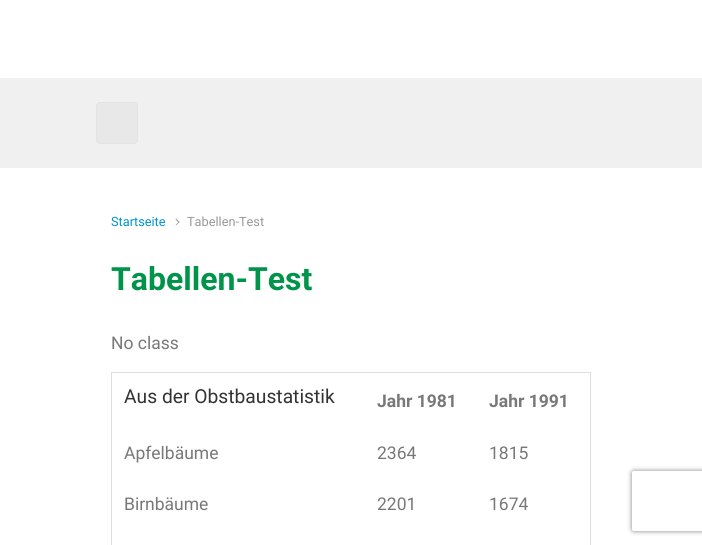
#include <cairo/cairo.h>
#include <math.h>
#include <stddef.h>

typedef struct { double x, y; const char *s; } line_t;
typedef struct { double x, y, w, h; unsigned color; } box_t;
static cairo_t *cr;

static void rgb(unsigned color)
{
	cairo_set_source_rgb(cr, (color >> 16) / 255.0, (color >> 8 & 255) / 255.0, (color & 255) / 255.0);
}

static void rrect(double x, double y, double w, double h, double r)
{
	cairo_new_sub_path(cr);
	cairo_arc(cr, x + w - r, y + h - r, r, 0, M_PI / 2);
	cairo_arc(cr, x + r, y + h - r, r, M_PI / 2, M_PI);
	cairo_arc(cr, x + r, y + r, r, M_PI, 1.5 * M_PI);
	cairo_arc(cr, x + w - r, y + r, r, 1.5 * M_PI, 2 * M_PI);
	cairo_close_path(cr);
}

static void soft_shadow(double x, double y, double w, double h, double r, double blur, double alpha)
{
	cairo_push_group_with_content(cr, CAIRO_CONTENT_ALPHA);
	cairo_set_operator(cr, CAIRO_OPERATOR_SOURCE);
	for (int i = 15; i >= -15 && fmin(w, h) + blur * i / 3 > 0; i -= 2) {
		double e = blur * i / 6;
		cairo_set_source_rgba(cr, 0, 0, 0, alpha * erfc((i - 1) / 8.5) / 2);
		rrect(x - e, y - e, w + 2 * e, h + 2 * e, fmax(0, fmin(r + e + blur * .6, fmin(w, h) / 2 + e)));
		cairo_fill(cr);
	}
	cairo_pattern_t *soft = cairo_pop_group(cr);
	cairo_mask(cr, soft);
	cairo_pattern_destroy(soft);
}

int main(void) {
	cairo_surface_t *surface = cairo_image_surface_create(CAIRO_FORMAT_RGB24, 702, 545);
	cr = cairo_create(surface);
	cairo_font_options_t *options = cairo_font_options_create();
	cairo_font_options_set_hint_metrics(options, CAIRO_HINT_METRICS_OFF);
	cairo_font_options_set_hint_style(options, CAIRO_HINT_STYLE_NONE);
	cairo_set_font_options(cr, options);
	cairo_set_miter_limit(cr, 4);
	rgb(0xffffff);
	cairo_paint(cr);
	rgb(0xf0f0f0);
	cairo_rectangle(cr, 0, 78, 702, 90);
	cairo_fill(cr);
	rgb(0xe8e8e8);
	rrect(96.5, 102.5, 41, 41, 3.5);
	cairo_fill_preserve(cr);
	rgb(0xe4e4e4);
	cairo_set_line_width(cr, 1);
	cairo_stroke(cr);
	rgb(0x999999);
	cairo_new_path(cr);
	cairo_move_to(cr, 175.5, 219.5);
	cairo_line_to(cr, 176, 218.5);
	cairo_line_to(cr, 179.5, 222);
	cairo_line_to(cr, 179, 223);
	cairo_close_path(cr);
	cairo_fill(cr);
	cairo_new_path(cr);
	cairo_move_to(cr, 175.5, 225);
	cairo_line_to(cr, 179, 221.5);
	cairo_line_to(cr, 179.5, 222);
	cairo_line_to(cr, 176, 225.5);
	cairo_close_path(cr);
	cairo_fill(cr);
	{
		static const box_t items[] = {
			{111, 372, 480, 1, 0xe0dddd},
			{590, 372, 1, 173, 0xe0dddd},
			{111, 372, 1, 173, 0xe0dddd},
		};
		for (size_t i = 0; i < sizeof items / sizeof *items; i++) {
			rgb(items[i].color);
			cairo_rectangle(cr, items[i].x, items[i].y, items[i].w, items[i].h);
			cairo_fill(cr);
		}
	}
	cairo_save(cr);
	cairo_set_fill_rule(cr, CAIRO_FILL_RULE_EVEN_ODD);
	cairo_new_path(cr);
	cairo_move_to(cr, 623, 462);
	cairo_line_to(cr, 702, 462);
	cairo_line_to(cr, 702, 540);
	cairo_line_to(cr, 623, 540);
	cairo_close_path(cr);
	cairo_move_to(cr, 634, 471);
	cairo_line_to(cr, 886, 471);
	cairo_curve_to(cr, 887, 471, 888, 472, 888, 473);
	cairo_line_to(cr, 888, 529);
	cairo_curve_to(cr, 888, 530, 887, 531, 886, 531);
	cairo_line_to(cr, 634, 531);
	cairo_curve_to(cr, 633, 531, 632, 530, 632, 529);
	cairo_line_to(cr, 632, 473);
	cairo_curve_to(cr, 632, 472, 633, 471, 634, 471);
	cairo_close_path(cr);
	cairo_clip(cr);
	rgb(0x808080);
	soft_shadow(632, 471, 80, 60, 2, 2.5, 1);
	cairo_restore(cr);
	cairo_select_font_face(cr, "Roboto", CAIRO_FONT_SLANT_NORMAL, CAIRO_FONT_WEIGHT_NORMAL);
	cairo_set_font_size(cr, 12.75);
	rgb(0x0094ce);
	cairo_move_to(cr, 111, 226);
	cairo_show_text(cr, "Startseite");
	rgb(0x999999);
	cairo_move_to(cr, 187, 226);
	cairo_show_text(cr, "Tabellen-Test");
	cairo_select_font_face(cr, "Roboto", CAIRO_FONT_SLANT_NORMAL, CAIRO_FONT_WEIGHT_BOLD);
	cairo_set_font_size(cr, 32);
	rgb(0x00944a);
	cairo_move_to(cr, 111, 290);
	cairo_show_text(cr, "Tabellen-Test");
	cairo_select_font_face(cr, "Roboto", CAIRO_FONT_SLANT_NORMAL, CAIRO_FONT_WEIGHT_NORMAL);
	cairo_set_font_size(cr, 17.5);
	rgb(0x787878);
	cairo_move_to(cr, 111, 349);
	cairo_show_text(cr, "No class");
	cairo_set_font_size(cr, 19.25);
	rgb(0x333333);
	cairo_move_to(cr, 124, 403);
	cairo_show_text(cr, "Aus der Obstbaustatistik");
	cairo_select_font_face(cr, "Roboto", CAIRO_FONT_SLANT_NORMAL, CAIRO_FONT_WEIGHT_BOLD);
	cairo_set_font_size(cr, 17.5);
	rgb(0x787878);
	cairo_move_to(cr, 377, 407);
	cairo_show_text(cr, "Jahr 1981");
	cairo_move_to(cr, 489, 407);
	cairo_show_text(cr, "Jahr 1991");
	cairo_select_font_face(cr, "Roboto", CAIRO_FONT_SLANT_NORMAL, CAIRO_FONT_WEIGHT_NORMAL);
	{
		static const line_t items[] = {
			{124, 459, "Apfelbäume"},
			{377, 459, "2364"},
			{489, 459, "1815"},
			{124, 510, "Birnbäume"},
			{377, 510, "2201"},
			{489, 510, "1674"},
		};
		for (size_t i = 0; i < sizeof items / sizeof *items; i++) {
			cairo_move_to(cr, items[i].x, items[i].y);
			cairo_show_text(cr, items[i].s);
		}
	}
	cairo_surface_write_to_png(surface, "page.png");
	cairo_font_options_destroy(options);
	cairo_destroy(cr);
	cairo_surface_destroy(surface);
	return 0;
}
